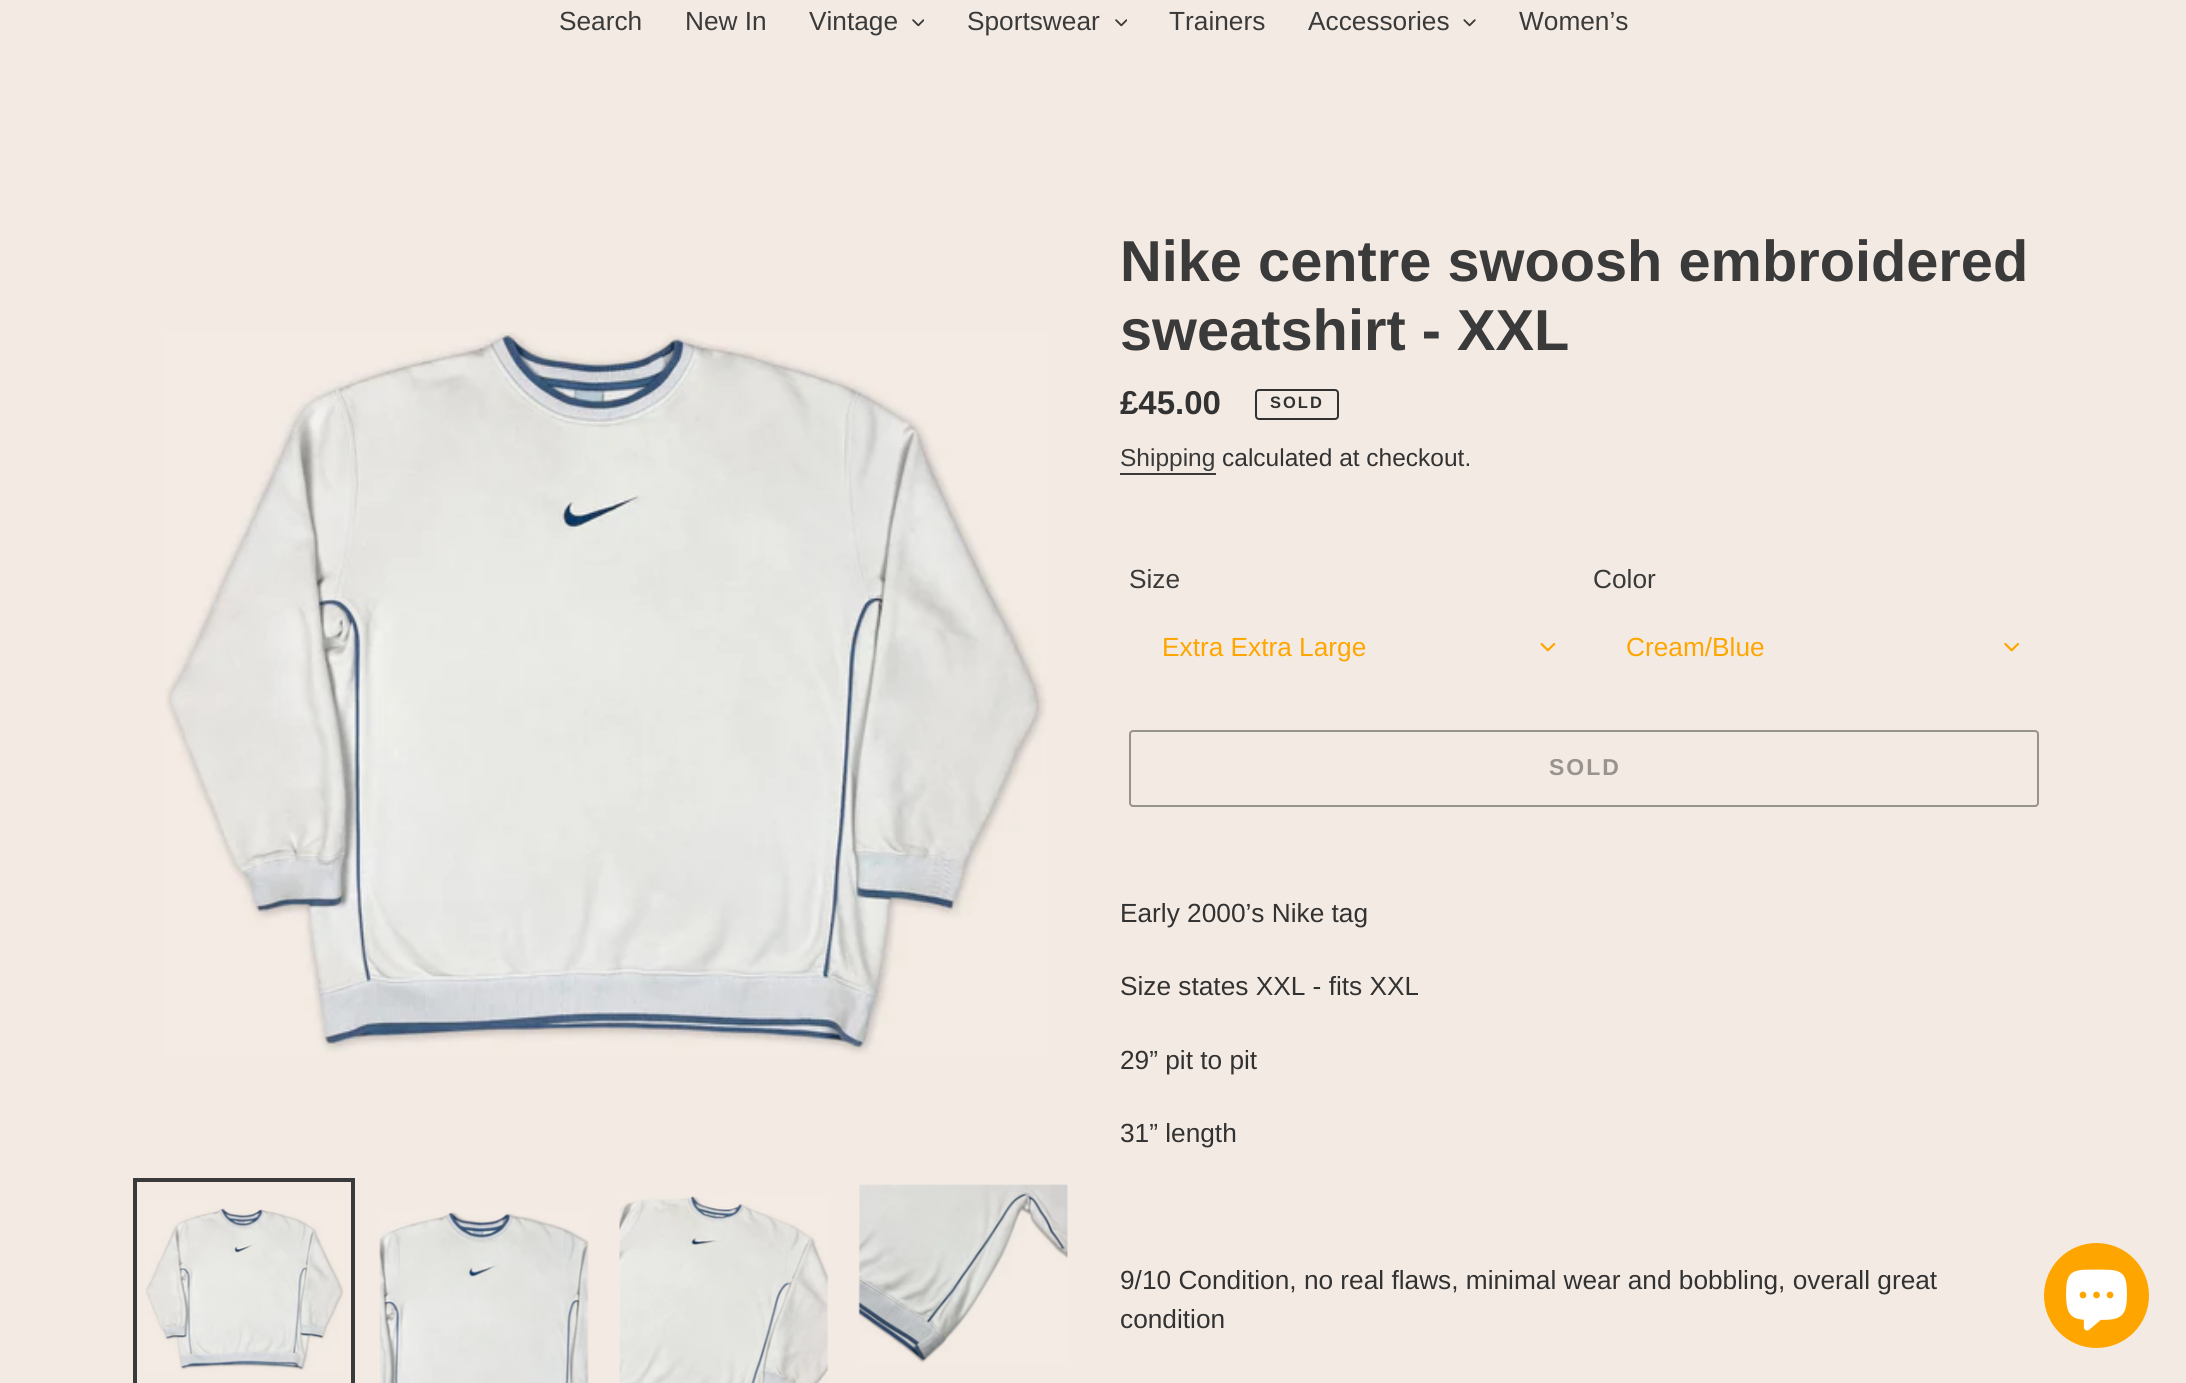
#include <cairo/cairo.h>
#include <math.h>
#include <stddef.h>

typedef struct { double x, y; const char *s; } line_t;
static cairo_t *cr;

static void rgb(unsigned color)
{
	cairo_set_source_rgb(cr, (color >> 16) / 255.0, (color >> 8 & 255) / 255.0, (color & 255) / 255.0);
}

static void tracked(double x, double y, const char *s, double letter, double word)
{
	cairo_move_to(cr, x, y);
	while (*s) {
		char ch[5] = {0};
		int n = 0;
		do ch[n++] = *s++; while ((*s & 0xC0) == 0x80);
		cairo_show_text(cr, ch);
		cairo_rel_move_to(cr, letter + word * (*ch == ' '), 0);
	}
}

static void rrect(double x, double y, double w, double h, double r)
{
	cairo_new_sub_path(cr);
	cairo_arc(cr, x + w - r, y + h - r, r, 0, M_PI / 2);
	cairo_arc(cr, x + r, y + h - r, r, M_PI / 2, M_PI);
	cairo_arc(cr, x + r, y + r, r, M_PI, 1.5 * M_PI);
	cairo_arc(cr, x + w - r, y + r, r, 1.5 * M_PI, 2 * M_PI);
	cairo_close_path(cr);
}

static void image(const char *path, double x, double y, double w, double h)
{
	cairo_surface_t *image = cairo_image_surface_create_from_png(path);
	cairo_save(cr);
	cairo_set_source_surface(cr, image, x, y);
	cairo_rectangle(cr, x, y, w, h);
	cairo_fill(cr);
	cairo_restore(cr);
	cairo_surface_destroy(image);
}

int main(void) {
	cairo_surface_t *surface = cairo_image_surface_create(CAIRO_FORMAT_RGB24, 2186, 1383);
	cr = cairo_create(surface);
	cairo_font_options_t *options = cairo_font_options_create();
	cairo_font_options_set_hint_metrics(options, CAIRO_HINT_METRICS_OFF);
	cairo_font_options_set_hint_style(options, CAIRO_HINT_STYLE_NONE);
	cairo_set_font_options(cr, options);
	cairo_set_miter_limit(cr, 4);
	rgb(0xf3ebe3);
	cairo_paint(cr);
	image("img/1.png", 912, 19, 12, 8);
	image("img/1.png", 1115, 19, 12, 8);
	image("img/2.png", 1463, 19, 13, 8);
	image("img/3.png", 165, 332, 882, 723);
	cairo_rectangle(cr, 135, 1180, 218, 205);
	rgb(0x3a3a3a);
	cairo_set_line_width(cr, 4);
	cairo_stroke(cr);
	image("img/4.png", 145, 1207, 199, 165);
	image("img/5.png", 379, 1211, 210, 172);
	image("img/6.png", 619, 1196, 210, 187);
	image("img/7.png", 858, 1184, 210, 179);
	rrect(1256, 390, 82, 29, 3);
	rgb(0x333232);
	cairo_set_line_width(cr, 2);
	cairo_stroke(cr);
	rgb(0x3a3a3a);
	cairo_rectangle(cr, 1120, 473, 96, 2);
	cairo_fill(cr);
	image("img/8.png", 1540, 642, 16, 10);
	image("img/9.png", 2004, 642, 15, 10);
	rrect(1130, 731, 908, 75, 3);
	rgb(0x97938f);
	cairo_stroke(cr);
	rgb(0xffa500);
	cairo_arc(cr, 2096.5, 1295.5, 52.5, 0, 2 * M_PI);
	cairo_fill(cr);
	image("img/10.png", 2066, 1269, 61, 62);
	cairo_select_font_face(cr, "Liberation Sans", CAIRO_FONT_SLANT_NORMAL, CAIRO_FONT_WEIGHT_NORMAL);
	cairo_set_font_size(cr, 26.25);
	rgb(0x3a3a3a);
	{
		static const line_t items[] = {
			{559, 30, "Search"},
			{685, 30, "New In"},
			{809, 30, "Vintage"},
			{967, 30, "Sportswear"},
			{1169, 30, "Trainers"},
			{1308, 30, "Accessories"},
			{1519, 30, "Women’s"},
		};
		for (size_t i = 0; i < sizeof items / sizeof *items; i++) {
			cairo_move_to(cr, items[i].x, items[i].y);
			cairo_show_text(cr, items[i].s);
		}
	}
	cairo_select_font_face(cr, "Liberation Sans", CAIRO_FONT_SLANT_NORMAL, CAIRO_FONT_WEIGHT_BOLD);
	cairo_set_font_size(cr, 57.75);
	cairo_move_to(cr, 1120, 281);
	cairo_show_text(cr, "Nike centre swoosh embroidered");
	cairo_move_to(cr, 1120, 350);
	cairo_show_text(cr, "sweatshirt - XXL");
	cairo_set_font_size(cr, 33);
	rgb(0x333232);
	cairo_move_to(cr, 1120, 414);
	cairo_show_text(cr, "£45.00");
	cairo_set_font_size(cr, 16.5);
	tracked(1270, 408, "SOLD", 2, 0);
	cairo_select_font_face(cr, "Liberation Sans", CAIRO_FONT_SLANT_NORMAL, CAIRO_FONT_WEIGHT_NORMAL);
	cairo_set_font_size(cr, 24.5);
	rgb(0x3a3a3a);
	cairo_move_to(cr, 1120, 466);
	cairo_show_text(cr, "Shipping");
	rgb(0x333232);
	cairo_move_to(cr, 1222, 466);
	cairo_show_text(cr, "calculated at checkout.");
	cairo_set_font_size(cr, 26.25);
	rgb(0x3a3a3a);
	cairo_move_to(cr, 1129, 588);
	cairo_show_text(cr, "Size");
	rgb(0xffa500);
	cairo_move_to(cr, 1162, 656);
	cairo_show_text(cr, "Extra Extra Large");
	rgb(0x3a3a3a);
	cairo_move_to(cr, 1593, 588);
	cairo_show_text(cr, "Color");
	rgb(0xffa500);
	cairo_move_to(cr, 1626, 656);
	cairo_show_text(cr, "Cream/Blue");
	cairo_select_font_face(cr, "Liberation Sans", CAIRO_FONT_SLANT_NORMAL, CAIRO_FONT_WEIGHT_BOLD);
	cairo_set_font_size(cr, 23);
	rgb(0x97938f);
	tracked(1549, 775, "SOLD", 2, 0);
	cairo_select_font_face(cr, "Liberation Sans", CAIRO_FONT_SLANT_NORMAL, CAIRO_FONT_WEIGHT_NORMAL);
	cairo_set_font_size(cr, 26.25);
	rgb(0x333232);
	{
		static const line_t items[] = {
			{1120, 922, "Early 2000’s Nike tag"},
			{1120, 995, "Size states XXL - fits XXL"},
			{1120, 1069, "29” pit to pit"},
			{1120, 1142, "31” length"},
			{1120, 1289, "9/10 Condition, no real flaws, minimal wear and bobbling, overall great"},
			{1120, 1328, "condition"},
		};
		for (size_t i = 0; i < sizeof items / sizeof *items; i++) {
			cairo_move_to(cr, items[i].x, items[i].y);
			cairo_show_text(cr, items[i].s);
		}
	}
	cairo_surface_write_to_png(surface, "page.png");
	cairo_font_options_destroy(options);
	cairo_destroy(cr);
	cairo_surface_destroy(surface);
	return 0;
}
